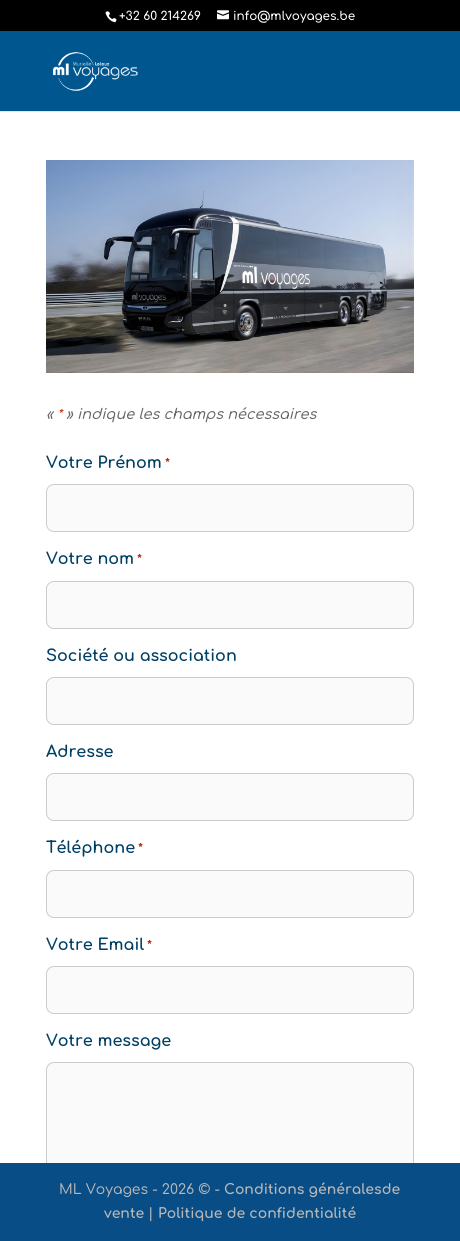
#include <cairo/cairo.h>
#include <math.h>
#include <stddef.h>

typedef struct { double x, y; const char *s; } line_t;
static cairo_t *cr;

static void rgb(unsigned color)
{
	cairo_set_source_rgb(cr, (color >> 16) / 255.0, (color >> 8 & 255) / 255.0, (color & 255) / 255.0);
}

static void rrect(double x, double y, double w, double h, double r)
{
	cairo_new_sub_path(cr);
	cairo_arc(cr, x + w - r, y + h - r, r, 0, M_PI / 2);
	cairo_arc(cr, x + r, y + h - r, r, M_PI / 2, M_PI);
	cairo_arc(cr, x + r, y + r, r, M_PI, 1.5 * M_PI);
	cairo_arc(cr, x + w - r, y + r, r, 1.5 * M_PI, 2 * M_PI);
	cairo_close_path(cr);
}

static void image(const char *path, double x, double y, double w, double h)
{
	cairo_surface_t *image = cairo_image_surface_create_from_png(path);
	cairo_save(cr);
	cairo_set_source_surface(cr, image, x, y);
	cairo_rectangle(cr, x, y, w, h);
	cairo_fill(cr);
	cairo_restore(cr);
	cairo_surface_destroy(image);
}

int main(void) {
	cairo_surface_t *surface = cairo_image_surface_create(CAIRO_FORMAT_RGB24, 460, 1241);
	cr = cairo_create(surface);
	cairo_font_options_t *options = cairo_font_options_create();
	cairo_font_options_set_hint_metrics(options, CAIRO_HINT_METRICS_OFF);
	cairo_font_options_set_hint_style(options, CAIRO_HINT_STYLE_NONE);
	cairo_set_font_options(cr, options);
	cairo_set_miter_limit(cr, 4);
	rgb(0xffffff);
	cairo_paint(cr);
	rgb(0x000000);
	cairo_rectangle(cr, 0, 0, 460, 31);
	cairo_fill(cr);
	image("img/1.png", 105, 11, 12, 12);
	image("img/2.png", 217, 10, 12, 10);
	rgb(0xe6e6e6);
	cairo_rectangle(cr, 0, 111, 460, 1);
	cairo_fill(cr);
	rgb(0x00568f);
	cairo_rectangle(cr, 0, 31, 460, 80);
	cairo_fill(cr);
	image("img/3.png", 53, 52, 85, 39);
	image("img/4.png", 46, 160, 368, 213);
	rgb(0xfafafa);
	rrect(46.5, 484.5, 367, 47, 7.5);
	cairo_fill_preserve(cr);
	rgb(0xcccccc);
	cairo_set_line_width(cr, 1);
	cairo_stroke(cr);
	rgb(0xfafafa);
	rrect(46.5, 581.5, 367, 47, 7.5);
	cairo_fill_preserve(cr);
	rgb(0xcccccc);
	cairo_stroke(cr);
	rgb(0xfafafa);
	rrect(46.5, 677.5, 367, 47, 7.5);
	cairo_fill_preserve(cr);
	rgb(0xcccccc);
	cairo_stroke(cr);
	rgb(0xfafafa);
	rrect(46.5, 773.5, 367, 47, 7.5);
	cairo_fill_preserve(cr);
	rgb(0xcccccc);
	cairo_stroke(cr);
	rgb(0xfafafa);
	rrect(46.5, 870.5, 367, 47, 7.5);
	cairo_fill_preserve(cr);
	rgb(0xcccccc);
	cairo_stroke(cr);
	rgb(0xfafafa);
	rrect(46.5, 966.5, 367, 47, 7.5);
	cairo_fill_preserve(cr);
	rgb(0xcccccc);
	cairo_stroke(cr);
	rgb(0xfafafa);
	rrect(46.5, 1062.5, 367, 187, 7.5);
	cairo_fill_preserve(cr);
	rgb(0xcccccc);
	cairo_stroke(cr);
	rgb(0x084d85);
	cairo_rectangle(cr, 0, 1163, 460, 78);
	cairo_fill(cr);
	cairo_select_font_face(cr, "Comfortaa SemiBold", CAIRO_FONT_SLANT_NORMAL, CAIRO_FONT_WEIGHT_NORMAL);
	cairo_set_font_size(cr, 12);
	rgb(0xffffff);
	cairo_move_to(cr, 119, 20);
	cairo_show_text(cr, "+32 60 214269");
	cairo_move_to(cr, 233, 20);
	cairo_show_text(cr, "info@mlvoyages.be");
	cairo_select_font_face(cr, "Comfortaa Medium", CAIRO_FONT_SLANT_ITALIC, CAIRO_FONT_WEIGHT_NORMAL);
	cairo_set_font_size(cr, 13);
	rgb(0xc02b0a);
	cairo_move_to(cr, 57, 419);
	cairo_show_text(cr, "*");
	cairo_set_font_size(cr, 14.4);
	rgb(0x666666);
	cairo_move_to(cr, 66, 419);
	cairo_show_text(cr, "» indique les champs nécessaires");
	cairo_move_to(cr, 46, 419);
	cairo_show_text(cr, "«");
	cairo_select_font_face(cr, "Comfortaa", CAIRO_FONT_SLANT_NORMAL, CAIRO_FONT_WEIGHT_BOLD);
	cairo_set_font_size(cr, 16);
	rgb(0x003f63);
	cairo_move_to(cr, 46, 468);
	cairo_show_text(cr, "Votre Prénom");
	cairo_set_font_size(cr, 13);
	rgb(0xc02b0a);
	cairo_move_to(cr, 165, 468);
	cairo_show_text(cr, "*");
	cairo_set_font_size(cr, 16);
	rgb(0x003f63);
	cairo_move_to(cr, 46, 564);
	cairo_show_text(cr, "Votre nom");
	cairo_set_font_size(cr, 13);
	rgb(0xc02b0a);
	cairo_move_to(cr, 137, 564);
	cairo_show_text(cr, "*");
	cairo_set_font_size(cr, 16);
	rgb(0x003f63);
	{
		static const line_t items[] = {
			{46, 661, "Société ou association"},
			{46, 757, "Adresse"},
			{46, 853, "Téléphone"},
		};
		for (size_t i = 0; i < sizeof items / sizeof *items; i++) {
			cairo_move_to(cr, items[i].x, items[i].y);
			cairo_show_text(cr, items[i].s);
		}
	}
	cairo_set_font_size(cr, 13);
	rgb(0xc02b0a);
	cairo_move_to(cr, 138, 853);
	cairo_show_text(cr, "*");
	cairo_set_font_size(cr, 16);
	rgb(0x003f63);
	cairo_move_to(cr, 46, 950);
	cairo_show_text(cr, "Votre Email");
	cairo_set_font_size(cr, 13);
	rgb(0xc02b0a);
	cairo_move_to(cr, 147, 950);
	cairo_show_text(cr, "*");
	cairo_set_font_size(cr, 16);
	rgb(0x003f63);
	cairo_move_to(cr, 46, 1046);
	cairo_show_text(cr, "Votre message");
	cairo_select_font_face(cr, "Comfortaa Medium", CAIRO_FONT_SLANT_NORMAL, CAIRO_FONT_WEIGHT_NORMAL);
	cairo_set_font_size(cr, 14);
	rgb(0xb7b7b7);
	cairo_move_to(cr, 59, 1194);
	cairo_show_text(cr, "ML Voyages - 2026 © -");
	cairo_select_font_face(cr, "Comfortaa", CAIRO_FONT_SLANT_NORMAL, CAIRO_FONT_WEIGHT_BOLD);
	cairo_move_to(cr, 224, 1194);
	cairo_show_text(cr, "Conditions généralesde");
	cairo_move_to(cr, 104, 1218);
	cairo_show_text(cr, "vente");
	cairo_select_font_face(cr, "Comfortaa Medium", CAIRO_FONT_SLANT_NORMAL, CAIRO_FONT_WEIGHT_NORMAL);
	cairo_move_to(cr, 148, 1218);
	cairo_show_text(cr, "|");
	cairo_select_font_face(cr, "Comfortaa", CAIRO_FONT_SLANT_NORMAL, CAIRO_FONT_WEIGHT_BOLD);
	cairo_move_to(cr, 158, 1218);
	cairo_show_text(cr, "Politique de confidentialité");
	cairo_surface_write_to_png(surface, "page.png");
	cairo_font_options_destroy(options);
	cairo_destroy(cr);
	cairo_surface_destroy(surface);
	return 0;
}
